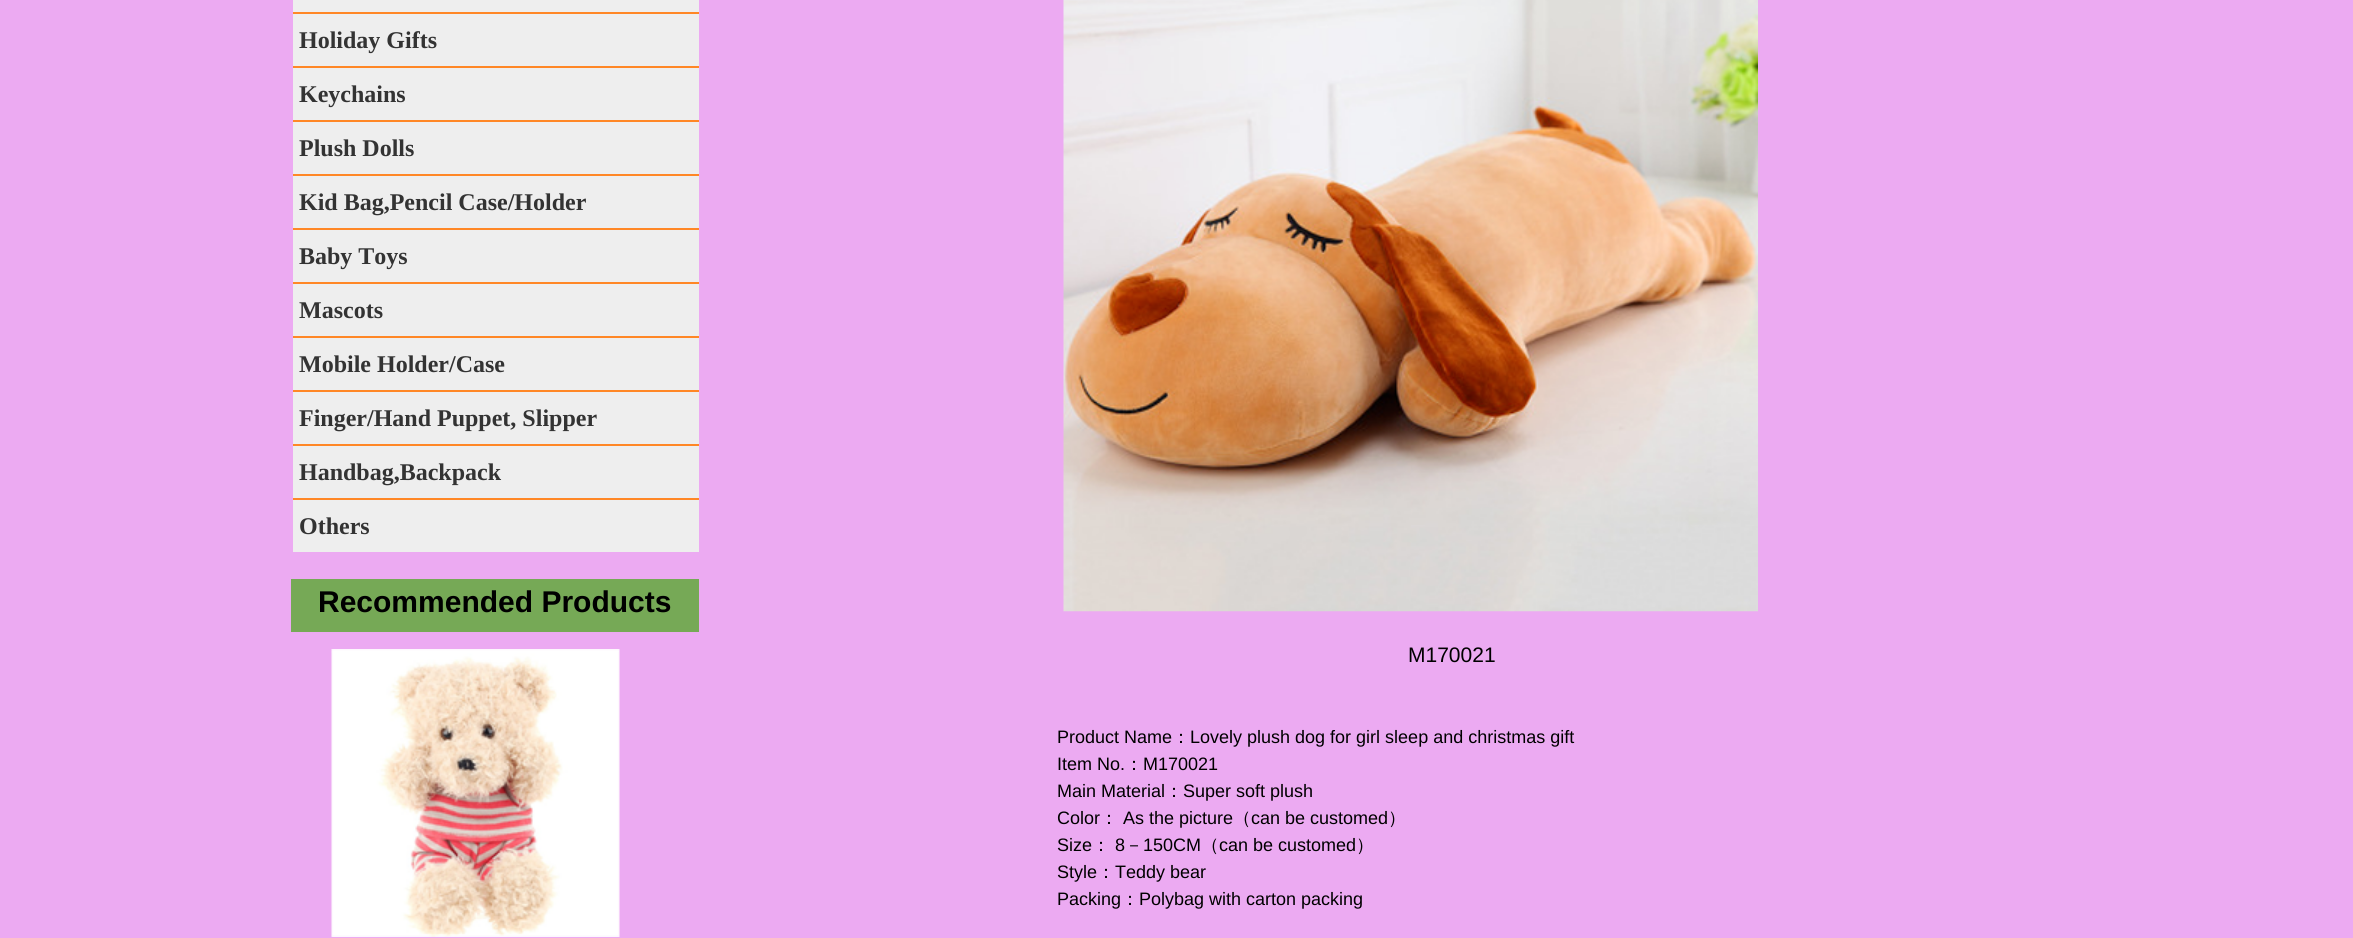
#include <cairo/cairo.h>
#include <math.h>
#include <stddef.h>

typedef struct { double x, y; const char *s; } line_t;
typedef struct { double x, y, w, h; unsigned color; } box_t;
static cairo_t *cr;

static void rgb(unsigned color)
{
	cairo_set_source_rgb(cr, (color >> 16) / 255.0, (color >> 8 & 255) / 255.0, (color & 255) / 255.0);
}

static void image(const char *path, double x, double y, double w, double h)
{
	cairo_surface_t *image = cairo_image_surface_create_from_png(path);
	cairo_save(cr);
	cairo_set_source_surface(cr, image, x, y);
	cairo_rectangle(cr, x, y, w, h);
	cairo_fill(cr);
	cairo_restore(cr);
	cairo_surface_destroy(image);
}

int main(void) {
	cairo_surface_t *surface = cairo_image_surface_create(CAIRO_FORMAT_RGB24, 2353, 938);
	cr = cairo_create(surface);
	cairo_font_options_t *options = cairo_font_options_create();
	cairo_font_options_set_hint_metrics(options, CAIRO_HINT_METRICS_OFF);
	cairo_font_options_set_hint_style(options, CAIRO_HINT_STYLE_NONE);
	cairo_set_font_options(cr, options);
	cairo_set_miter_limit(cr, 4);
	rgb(0xecaaf2);
	cairo_paint(cr);
	{
		static const box_t items[] = {
			{293, 0, 406, 12, 0xeeeeee},
			{293, 12, 406, 2, 0xff8726},
			{293, 14, 406, 52, 0xeeeeee},
			{293, 66, 406, 2, 0xff8726},
			{293, 68, 406, 52, 0xeeeeee},
			{293, 120, 406, 2, 0xff8726},
			{293, 122, 406, 52, 0xeeeeee},
			{293, 174, 406, 2, 0xff8726},
			{293, 176, 406, 52, 0xeeeeee},
			{293, 228, 406, 2, 0xff8726},
			{293, 230, 406, 52, 0xeeeeee},
			{293, 282, 406, 2, 0xff8726},
			{293, 284, 406, 52, 0xeeeeee},
			{293, 336, 406, 2, 0xff8726},
			{293, 338, 406, 52, 0xeeeeee},
			{293, 390, 406, 2, 0xff8726},
			{293, 392, 406, 52, 0xeeeeee},
			{293, 444, 406, 2, 0xff8726},
			{293, 446, 406, 52, 0xeeeeee},
			{293, 498, 406, 2, 0xff8726},
			{293, 500, 406, 52, 0xeeeeee},
			{291, 579, 408, 53, 0x76a956},
		};
		for (size_t i = 0; i < sizeof items / sizeof *items; i++) {
			rgb(items[i].color);
			cairo_rectangle(cr, items[i].x, items[i].y, items[i].w, items[i].h);
			cairo_fill(cr);
		}
	}
	image("img/1.png", 331, 649, 289, 288);
	image("img/2.png", 1063, 0, 695, 612);
	cairo_select_font_face(cr, "Liberation Serif", CAIRO_FONT_SLANT_NORMAL, CAIRO_FONT_WEIGHT_BOLD);
	cairo_set_font_size(cr, 24);
	rgb(0x333333);
	{
		static const line_t items[] = {
			{299, 48, "Holiday Gifts"},
			{299, 102, "Keychains"},
			{299, 156, "Plush Dolls"},
			{299, 210, "Kid Bag,Pencil Case/Holder"},
			{299, 264, "Baby Toys"},
			{299, 318, "Mascots"},
			{299, 372, "Mobile Holder/Case"},
			{299, 426, "Finger/Hand Puppet, Slipper"},
			{299, 480, "Handbag,Backpack"},
			{299, 534, "Others"},
		};
		for (size_t i = 0; i < sizeof items / sizeof *items; i++) {
			cairo_move_to(cr, items[i].x, items[i].y);
			cairo_show_text(cr, items[i].s);
		}
	}
	cairo_select_font_face(cr, "Liberation Sans", CAIRO_FONT_SLANT_NORMAL, CAIRO_FONT_WEIGHT_BOLD);
	cairo_set_font_size(cr, 30);
	rgb(0x000000);
	cairo_move_to(cr, 318, 612);
	cairo_show_text(cr, "Recommended Products");
	cairo_select_font_face(cr, "Liberation Sans", CAIRO_FONT_SLANT_NORMAL, CAIRO_FONT_WEIGHT_NORMAL);
	cairo_set_font_size(cr, 21);
	cairo_move_to(cr, 1408, 662);
	cairo_show_text(cr, "M170021");
	cairo_set_font_size(cr, 18);
	cairo_move_to(cr, 1057, 743);
	cairo_show_text(cr, "Product Name");
	cairo_select_font_face(cr, "WenQuanYi Zen Hei Medium", CAIRO_FONT_SLANT_NORMAL, CAIRO_FONT_WEIGHT_NORMAL);
	cairo_move_to(cr, 1172, 743);
	cairo_show_text(cr, "：");
	cairo_select_font_face(cr, "Liberation Sans", CAIRO_FONT_SLANT_NORMAL, CAIRO_FONT_WEIGHT_NORMAL);
	cairo_move_to(cr, 1190, 743);
	cairo_show_text(cr, "Lovely plush dog for girl sleep and christmas gift");
	cairo_move_to(cr, 1057, 770);
	cairo_show_text(cr, "Item No.");
	cairo_select_font_face(cr, "WenQuanYi Zen Hei Medium", CAIRO_FONT_SLANT_NORMAL, CAIRO_FONT_WEIGHT_NORMAL);
	cairo_move_to(cr, 1125, 770);
	cairo_show_text(cr, "：");
	cairo_select_font_face(cr, "Liberation Sans", CAIRO_FONT_SLANT_NORMAL, CAIRO_FONT_WEIGHT_NORMAL);
	cairo_move_to(cr, 1143, 770);
	cairo_show_text(cr, "M170021");
	cairo_move_to(cr, 1057, 797);
	cairo_show_text(cr, "Main Material");
	cairo_select_font_face(cr, "WenQuanYi Zen Hei Medium", CAIRO_FONT_SLANT_NORMAL, CAIRO_FONT_WEIGHT_NORMAL);
	cairo_move_to(cr, 1165, 797);
	cairo_show_text(cr, "：");
	cairo_select_font_face(cr, "Liberation Sans", CAIRO_FONT_SLANT_NORMAL, CAIRO_FONT_WEIGHT_NORMAL);
	cairo_move_to(cr, 1183, 797);
	cairo_show_text(cr, "Super soft plush");
	cairo_move_to(cr, 1057, 824);
	cairo_show_text(cr, "Color");
	cairo_select_font_face(cr, "WenQuanYi Zen Hei Medium", CAIRO_FONT_SLANT_NORMAL, CAIRO_FONT_WEIGHT_NORMAL);
	cairo_move_to(cr, 1100, 824);
	cairo_show_text(cr, "：");
	cairo_select_font_face(cr, "Liberation Sans", CAIRO_FONT_SLANT_NORMAL, CAIRO_FONT_WEIGHT_NORMAL);
	cairo_move_to(cr, 1123, 824);
	cairo_show_text(cr, "As the picture");
	cairo_select_font_face(cr, "WenQuanYi Zen Hei Medium", CAIRO_FONT_SLANT_NORMAL, CAIRO_FONT_WEIGHT_NORMAL);
	cairo_move_to(cr, 1233, 824);
	cairo_show_text(cr, "（");
	cairo_select_font_face(cr, "Liberation Sans", CAIRO_FONT_SLANT_NORMAL, CAIRO_FONT_WEIGHT_NORMAL);
	cairo_move_to(cr, 1251, 824);
	cairo_show_text(cr, "can be customed");
	cairo_select_font_face(cr, "WenQuanYi Zen Hei Medium", CAIRO_FONT_SLANT_NORMAL, CAIRO_FONT_WEIGHT_NORMAL);
	cairo_move_to(cr, 1388, 824);
	cairo_show_text(cr, "）");
	cairo_select_font_face(cr, "Liberation Sans", CAIRO_FONT_SLANT_NORMAL, CAIRO_FONT_WEIGHT_NORMAL);
	cairo_move_to(cr, 1057, 851);
	cairo_show_text(cr, "Size");
	cairo_select_font_face(cr, "WenQuanYi Zen Hei Medium", CAIRO_FONT_SLANT_NORMAL, CAIRO_FONT_WEIGHT_NORMAL);
	cairo_move_to(cr, 1092, 851);
	cairo_show_text(cr, "：");
	cairo_select_font_face(cr, "Liberation Sans", CAIRO_FONT_SLANT_NORMAL, CAIRO_FONT_WEIGHT_NORMAL);
	cairo_move_to(cr, 1115, 851);
	cairo_show_text(cr, "8");
	cairo_select_font_face(cr, "WenQuanYi Zen Hei Medium", CAIRO_FONT_SLANT_NORMAL, CAIRO_FONT_WEIGHT_NORMAL);
	cairo_move_to(cr, 1125, 851);
	cairo_show_text(cr, "－");
	cairo_select_font_face(cr, "Liberation Sans", CAIRO_FONT_SLANT_NORMAL, CAIRO_FONT_WEIGHT_NORMAL);
	cairo_move_to(cr, 1143, 851);
	cairo_show_text(cr, "150CM");
	cairo_select_font_face(cr, "WenQuanYi Zen Hei Medium", CAIRO_FONT_SLANT_NORMAL, CAIRO_FONT_WEIGHT_NORMAL);
	cairo_move_to(cr, 1201, 851);
	cairo_show_text(cr, "（");
	cairo_select_font_face(cr, "Liberation Sans", CAIRO_FONT_SLANT_NORMAL, CAIRO_FONT_WEIGHT_NORMAL);
	cairo_move_to(cr, 1219, 851);
	cairo_show_text(cr, "can be customed");
	cairo_select_font_face(cr, "WenQuanYi Zen Hei Medium", CAIRO_FONT_SLANT_NORMAL, CAIRO_FONT_WEIGHT_NORMAL);
	cairo_move_to(cr, 1356, 851);
	cairo_show_text(cr, "）");
	cairo_select_font_face(cr, "Liberation Sans", CAIRO_FONT_SLANT_NORMAL, CAIRO_FONT_WEIGHT_NORMAL);
	cairo_move_to(cr, 1057, 878);
	cairo_show_text(cr, "Style");
	cairo_select_font_face(cr, "WenQuanYi Zen Hei Medium", CAIRO_FONT_SLANT_NORMAL, CAIRO_FONT_WEIGHT_NORMAL);
	cairo_move_to(cr, 1097, 878);
	cairo_show_text(cr, "：");
	cairo_select_font_face(cr, "Liberation Sans", CAIRO_FONT_SLANT_NORMAL, CAIRO_FONT_WEIGHT_NORMAL);
	cairo_move_to(cr, 1115, 878);
	cairo_show_text(cr, "Teddy bear");
	cairo_move_to(cr, 1057, 905);
	cairo_show_text(cr, "Packing");
	cairo_select_font_face(cr, "WenQuanYi Zen Hei Medium", CAIRO_FONT_SLANT_NORMAL, CAIRO_FONT_WEIGHT_NORMAL);
	cairo_move_to(cr, 1121, 905);
	cairo_show_text(cr, "：");
	cairo_select_font_face(cr, "Liberation Sans", CAIRO_FONT_SLANT_NORMAL, CAIRO_FONT_WEIGHT_NORMAL);
	cairo_move_to(cr, 1139, 905);
	cairo_show_text(cr, "Polybag with carton packing");
	cairo_surface_write_to_png(surface, "page.png");
	cairo_font_options_destroy(options);
	cairo_destroy(cr);
	cairo_surface_destroy(surface);
	return 0;
}
